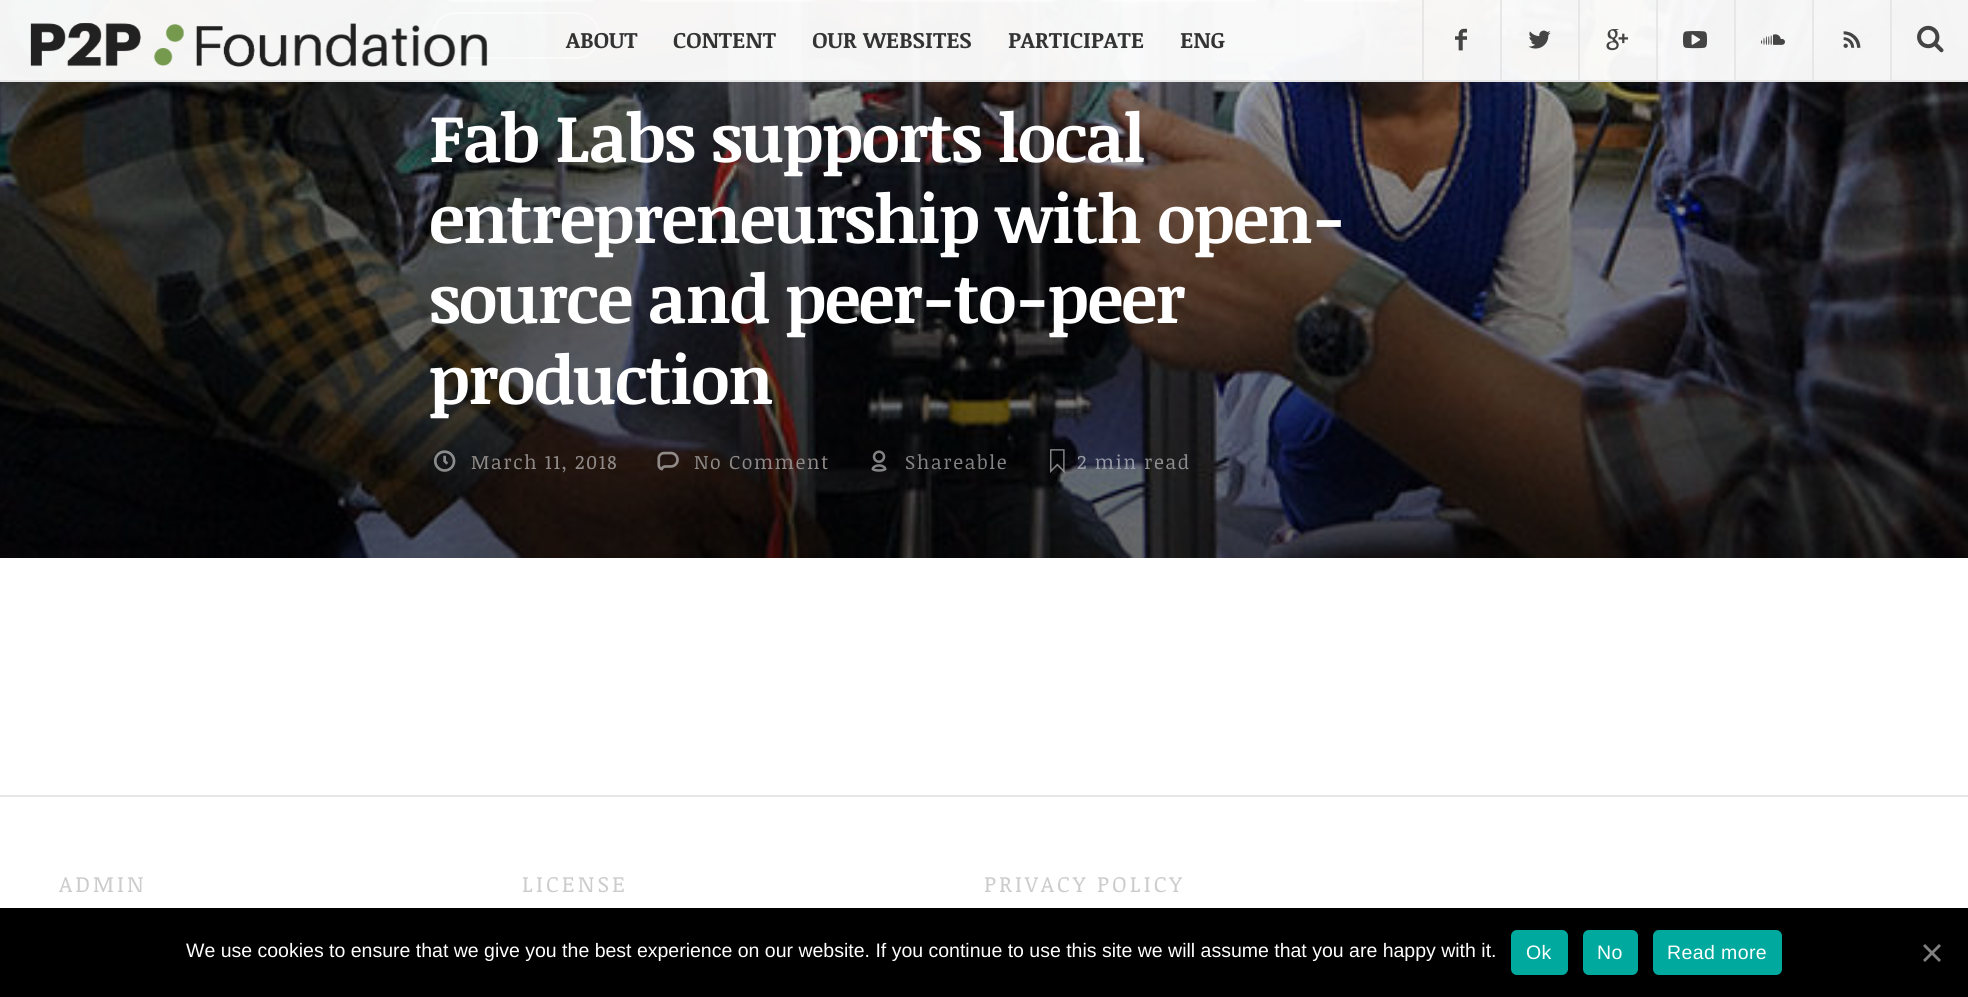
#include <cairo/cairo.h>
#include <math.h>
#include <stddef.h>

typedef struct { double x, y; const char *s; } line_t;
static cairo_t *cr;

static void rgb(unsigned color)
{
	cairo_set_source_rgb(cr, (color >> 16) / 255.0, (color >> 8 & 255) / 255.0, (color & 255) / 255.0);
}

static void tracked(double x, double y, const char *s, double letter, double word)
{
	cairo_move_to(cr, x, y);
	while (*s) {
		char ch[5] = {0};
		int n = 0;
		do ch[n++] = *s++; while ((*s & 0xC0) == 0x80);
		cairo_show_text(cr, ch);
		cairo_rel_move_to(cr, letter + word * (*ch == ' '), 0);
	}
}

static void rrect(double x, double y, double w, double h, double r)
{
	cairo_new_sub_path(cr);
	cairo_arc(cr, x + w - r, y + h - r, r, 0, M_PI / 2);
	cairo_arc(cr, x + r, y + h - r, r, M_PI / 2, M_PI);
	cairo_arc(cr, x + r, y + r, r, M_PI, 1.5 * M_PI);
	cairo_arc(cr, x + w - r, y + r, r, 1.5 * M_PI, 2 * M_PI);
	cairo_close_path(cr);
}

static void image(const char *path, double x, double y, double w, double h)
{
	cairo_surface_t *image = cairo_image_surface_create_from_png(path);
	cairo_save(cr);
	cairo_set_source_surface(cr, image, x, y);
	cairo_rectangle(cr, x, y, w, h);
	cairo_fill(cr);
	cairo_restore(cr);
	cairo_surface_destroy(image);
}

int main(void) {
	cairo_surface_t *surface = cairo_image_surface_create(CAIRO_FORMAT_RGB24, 1968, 997);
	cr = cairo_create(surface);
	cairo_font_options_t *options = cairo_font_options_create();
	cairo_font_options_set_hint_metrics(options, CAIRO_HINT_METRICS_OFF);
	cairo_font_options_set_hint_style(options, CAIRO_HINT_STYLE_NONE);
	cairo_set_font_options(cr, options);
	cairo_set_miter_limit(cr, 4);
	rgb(0xffffff);
	cairo_paint(cr);
	image("img/9.png", 0, 0, 1968, 558);
	rrect(433, -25, 175, 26, 22.5);
	cairo_set_source_rgba(cr, 1, 1, 1, 0.5);
	cairo_stroke(cr);
	rrect(624, -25, 205, 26, 22.5);
	cairo_stroke(cr);
	rrect(844, -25, 228, 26, 22.5);
	cairo_stroke(cr);
	rrect(1087, -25, 184, 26, 22.5);
	cairo_stroke(cr);
	rrect(1287, -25, 127, 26, 22.5);
	cairo_stroke(cr);
	rrect(433, 13, 166, 45, 22.5);
	cairo_stroke(cr);
	cairo_set_source_rgba(cr, 1, 1, 1, 0.95);
	cairo_rectangle(cr, 0, 0, 1968, 80);
	cairo_fill(cr);
	rgb(0xe7e7e7);
	cairo_rectangle(cr, 0, 80, 1968, 2);
	cairo_fill(cr);
	image("img/1.png", 30, 23, 458, 44);
	cairo_rectangle(cr, 1500, 0, 2, 81);
	cairo_fill(cr);
	cairo_rectangle(cr, 1422, 0, 2, 81);
	cairo_fill(cr);
	image("img/2.png", 1455, 28, 12, 23);
	cairo_rectangle(cr, 1578, 0, 2, 81);
	cairo_fill(cr);
	image("img/3.png", 1528, 30, 23, 19);
	cairo_rectangle(cr, 1656, 0, 2, 81);
	cairo_fill(cr);
	image("img/4.png", 1606, 29, 22, 22);
	cairo_rectangle(cr, 1734, 0, 2, 81);
	cairo_fill(cr);
	image("img/5.png", 1683, 31, 24, 18);
	cairo_rectangle(cr, 1812, 0, 2, 81);
	cairo_fill(cr);
	image("img/6.png", 1761, 34, 24, 11);
	cairo_rectangle(cr, 1890, 0, 2, 81);
	cairo_fill(cr);
	image("img/7.png", 1843, 31, 18, 17);
	image("img/8.png", 1917, 25, 27, 28);
	image("img/10.png", 434, 450, 22, 22);
	image("img/11.png", 657, 451, 22, 20);
	image("img/12.png", 871, 450, 16, 22);
	image("img/13.png", 1050, 449, 15, 24);
	rgb(0xe6e6e6);
	cairo_rectangle(cr, 0, 795, 1968, 2);
	cairo_fill(cr);
	rgb(0x000000);
	cairo_rectangle(cr, 0, 908, 1968, 89);
	cairo_fill(cr);
	rgb(0x00a99d);
	rrect(1511, 930, 57, 45, 6);
	cairo_fill(cr);
	rrect(1583, 930, 55, 45, 6);
	cairo_fill(cr);
	rrect(1653, 930, 129, 45, 6);
	cairo_fill(cr);
	rgb(0x808080);
	cairo_new_path(cr);
	cairo_move_to(cr, 1939, 944);
	cairo_line_to(cr, 1941, 946);
	cairo_line_to(cr, 1925, 962);
	cairo_line_to(cr, 1923, 960);
	cairo_close_path(cr);
	cairo_fill(cr);
	cairo_new_path(cr);
	cairo_move_to(cr, 1923, 946);
	cairo_line_to(cr, 1925, 944);
	cairo_line_to(cr, 1941, 960);
	cairo_line_to(cr, 1939, 962);
	cairo_close_path(cr);
	cairo_fill(cr);
	cairo_select_font_face(cr, "Noticia Text", CAIRO_FONT_SLANT_NORMAL, CAIRO_FONT_WEIGHT_BOLD);
	cairo_set_font_size(cr, 22.5);
	rgb(0x333333);
	{
		static const line_t items[] = {
			{566, 48, "ABOUT"},
			{673, 48, "CONTENT"},
			{812, 48, "OUR WEBSITES"},
			{1008, 48, "PARTICIPATE"},
			{1180, 48, "ENG"},
		};
		for (size_t i = 0; i < sizeof items / sizeof *items; i++) {
			cairo_move_to(cr, items[i].x, items[i].y);
			cairo_show_text(cr, items[i].s);
		}
	}
	cairo_set_font_size(cr, 67.25);
	rgb(0xffffff);
	{
		static const line_t items[] = {
			{429, 162, "Fab Labs supports local"},
			{429, 243, "entrepreneurship with open-"},
			{429, 323, "source and peer-to-peer"},
			{429, 404, "production"},
		};
		for (size_t i = 0; i < sizeof items / sizeof *items; i++) {
			tracked(items[i].x, items[i].y, items[i].s, -1.5, 0);
		}
	}
	cairo_select_font_face(cr, "Noticia Text", CAIRO_FONT_SLANT_NORMAL, CAIRO_FONT_WEIGHT_NORMAL);
	cairo_set_font_size(cr, 19.5);
	rgb(0x8f8a88);
	tracked(471, 469, "March 11, 2018", 1.5, 0);
	tracked(694, 469, "No Comment", 1.5, 0);
	rgb(0x838384);
	tracked(905, 469, "Shareable", 1.5, 0);
	rgb(0x999ba6);
	tracked(1077, 469, "2 min", 1.5, 0);
	rgb(0x8e8e8f);
	tracked(1144, 469, "read", 1.5, 0);
	cairo_set_font_size(cr, 22.25);
	rgb(0xcccccc);
	{
		static const line_t items[] = {
			{59, 892, "ADMIN"},
			{522, 892, "LICENSE"},
			{984, 892, "PRIVACY POLICY"},
		};
		for (size_t i = 0; i < sizeof items / sizeof *items; i++) {
			tracked(items[i].x, items[i].y, items[i].s, 3, 0);
		}
	}
	cairo_select_font_face(cr, "Liberation Sans", CAIRO_FONT_SLANT_NORMAL, CAIRO_FONT_WEIGHT_NORMAL);
	cairo_set_font_size(cr, 19.5);
	rgb(0xffffff);
	cairo_move_to(cr, 186, 957);
	cairo_show_text(cr, "We use cookies to ensure that we give you the best experience on our website. If you continue to use this site we will assume that you are happy with it.");
	{
		static const line_t items[] = {
			{1526, 959, "Ok"},
			{1597, 959, "No"},
			{1667, 959, "Read more"},
		};
		for (size_t i = 0; i < sizeof items / sizeof *items; i++) {
			tracked(items[i].x, items[i].y, items[i].s, 0.4, 0);
		}
	}
	cairo_surface_write_to_png(surface, "page.png");
	cairo_font_options_destroy(options);
	cairo_destroy(cr);
	cairo_surface_destroy(surface);
	return 0;
}
